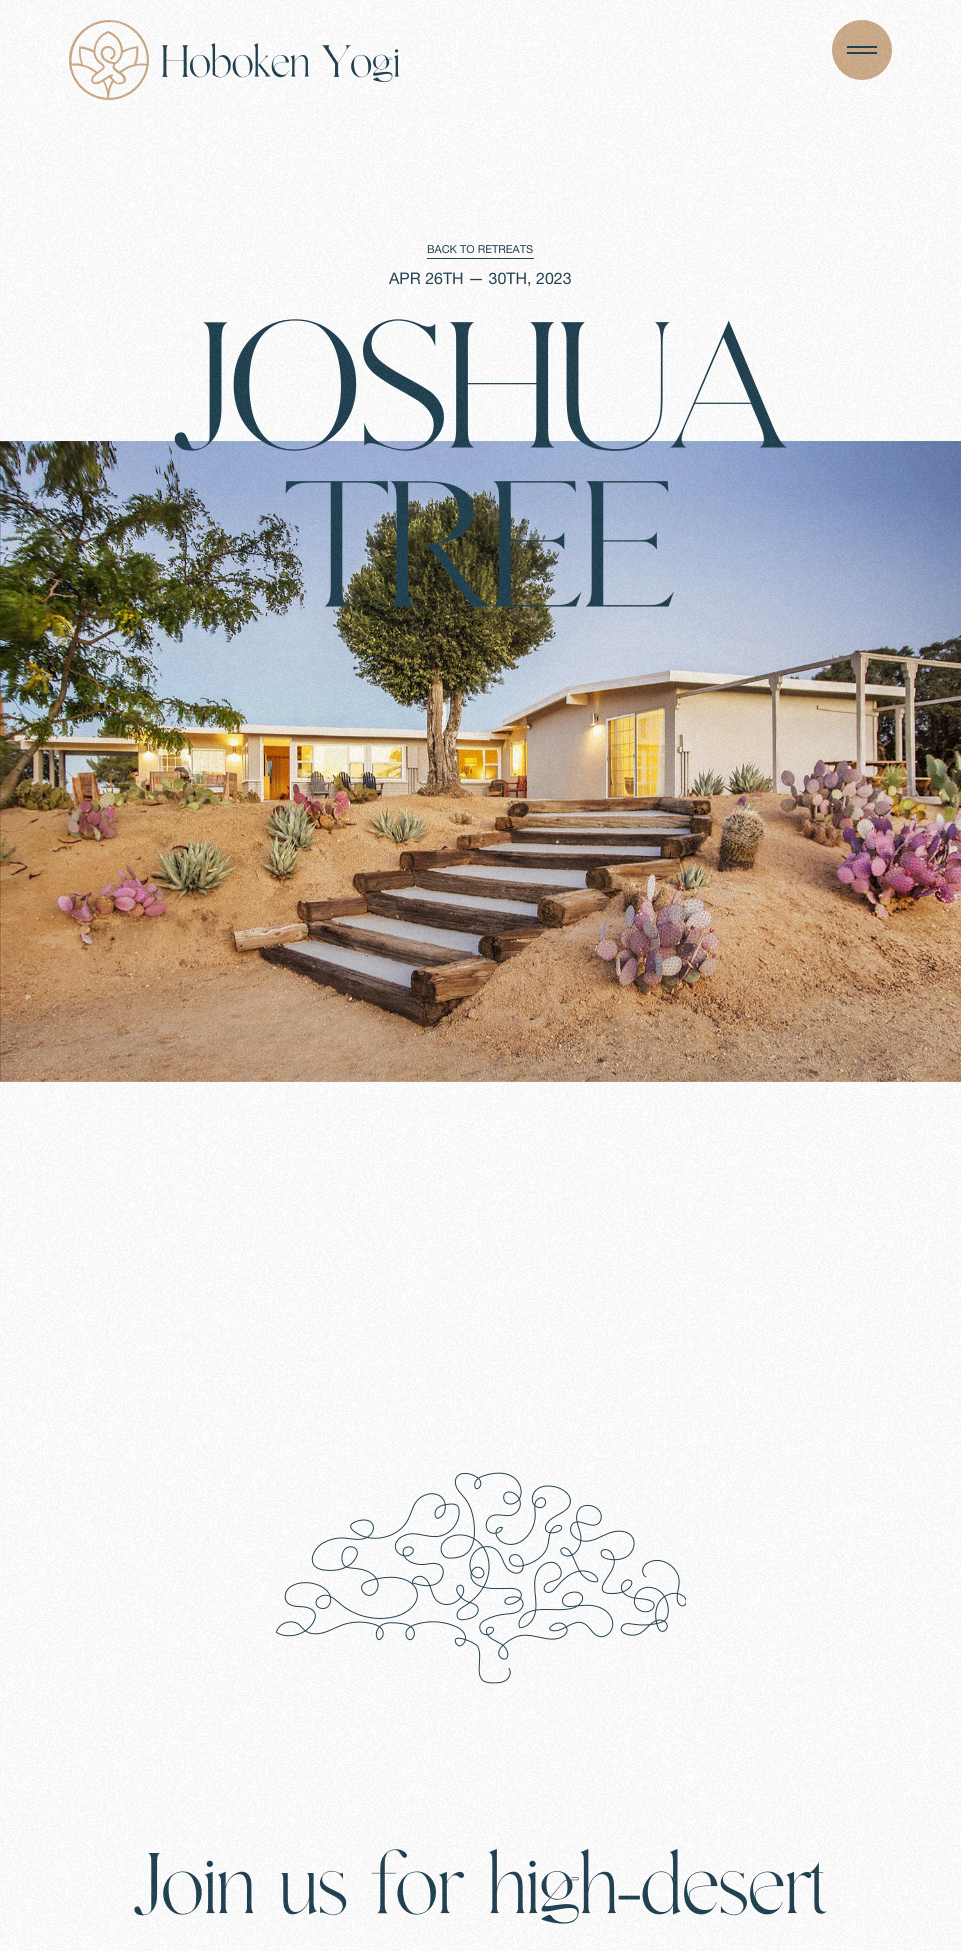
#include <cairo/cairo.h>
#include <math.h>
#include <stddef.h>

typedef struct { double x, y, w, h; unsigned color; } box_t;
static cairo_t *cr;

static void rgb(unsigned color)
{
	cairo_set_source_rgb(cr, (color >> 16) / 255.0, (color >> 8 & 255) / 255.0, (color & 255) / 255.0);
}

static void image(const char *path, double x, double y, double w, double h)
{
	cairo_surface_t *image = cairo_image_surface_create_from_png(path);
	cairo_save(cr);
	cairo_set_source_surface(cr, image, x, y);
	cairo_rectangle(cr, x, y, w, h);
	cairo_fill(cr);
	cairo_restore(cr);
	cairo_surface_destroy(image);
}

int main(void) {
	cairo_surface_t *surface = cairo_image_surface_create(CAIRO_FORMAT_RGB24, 961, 1951);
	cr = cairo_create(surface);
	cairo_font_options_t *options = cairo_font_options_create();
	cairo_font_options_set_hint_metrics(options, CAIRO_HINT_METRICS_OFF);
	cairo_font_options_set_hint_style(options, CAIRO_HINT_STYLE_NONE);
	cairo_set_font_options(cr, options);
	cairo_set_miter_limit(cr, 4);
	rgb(0xffffff);
	cairo_paint(cr);
	image("img/2.png", 69, 20, 80, 80);
	rgb(0xccab88);
	cairo_arc(cr, 862, 50, 30, 0, 2 * M_PI);
	cairo_fill(cr);
	{
		static const box_t items[] = {
			{847, 46, 30, 2, 0x204050},
			{847, 52, 30, 2, 0x204050},
			{427, 258, 107, 1, 0x204050},
		};
		for (size_t i = 0; i < sizeof items / sizeof *items; i++) {
			rgb(items[i].color);
			cairo_rectangle(cr, items[i].x, items[i].y, items[i].w, items[i].h);
			cairo_fill(cr);
		}
	}
	image("img/3.png", 0, 441, 961, 641);
	image("img/4.png", 275, 1472, 411, 212);
	cairo_select_font_face(cr, "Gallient", CAIRO_FONT_SLANT_NORMAL, CAIRO_FONT_WEIGHT_NORMAL);
	cairo_set_font_size(cr, 40);
	cairo_move_to(cr, 161, 77);
	cairo_show_text(cr, "Hoboken Yogi");
	cairo_select_font_face(cr, "Helvetica Neue", CAIRO_FONT_SLANT_NORMAL, CAIRO_FONT_WEIGHT_NORMAL);
	cairo_set_font_size(cr, 11);
	cairo_move_to(cr, 427, 253);
	cairo_show_text(cr, "BACK TO RETREATS");
	cairo_set_font_size(cr, 16);
	cairo_move_to(cr, 389, 284);
	cairo_show_text(cr, "APR 26TH — 30TH, 2023");
	cairo_select_font_face(cr, "Gallient", CAIRO_FONT_SLANT_NORMAL, CAIRO_FONT_WEIGHT_NORMAL);
	cairo_set_font_size(cr, 158.5);
	cairo_move_to(cr, 176, 448);
	cairo_show_text(cr, "JOSHUA");
	cairo_move_to(cr, 287, 607);
	cairo_show_text(cr, "TREE");
	cairo_set_font_size(cr, 76.9);
	cairo_move_to(cr, 135, 1914);
	cairo_show_text(cr, "Join us for high-desert");
	image("img/1.png", 0, 0, 961, 1951);
	cairo_surface_write_to_png(surface, "page.png");
	cairo_font_options_destroy(options);
	cairo_destroy(cr);
	cairo_surface_destroy(surface);
	return 0;
}
